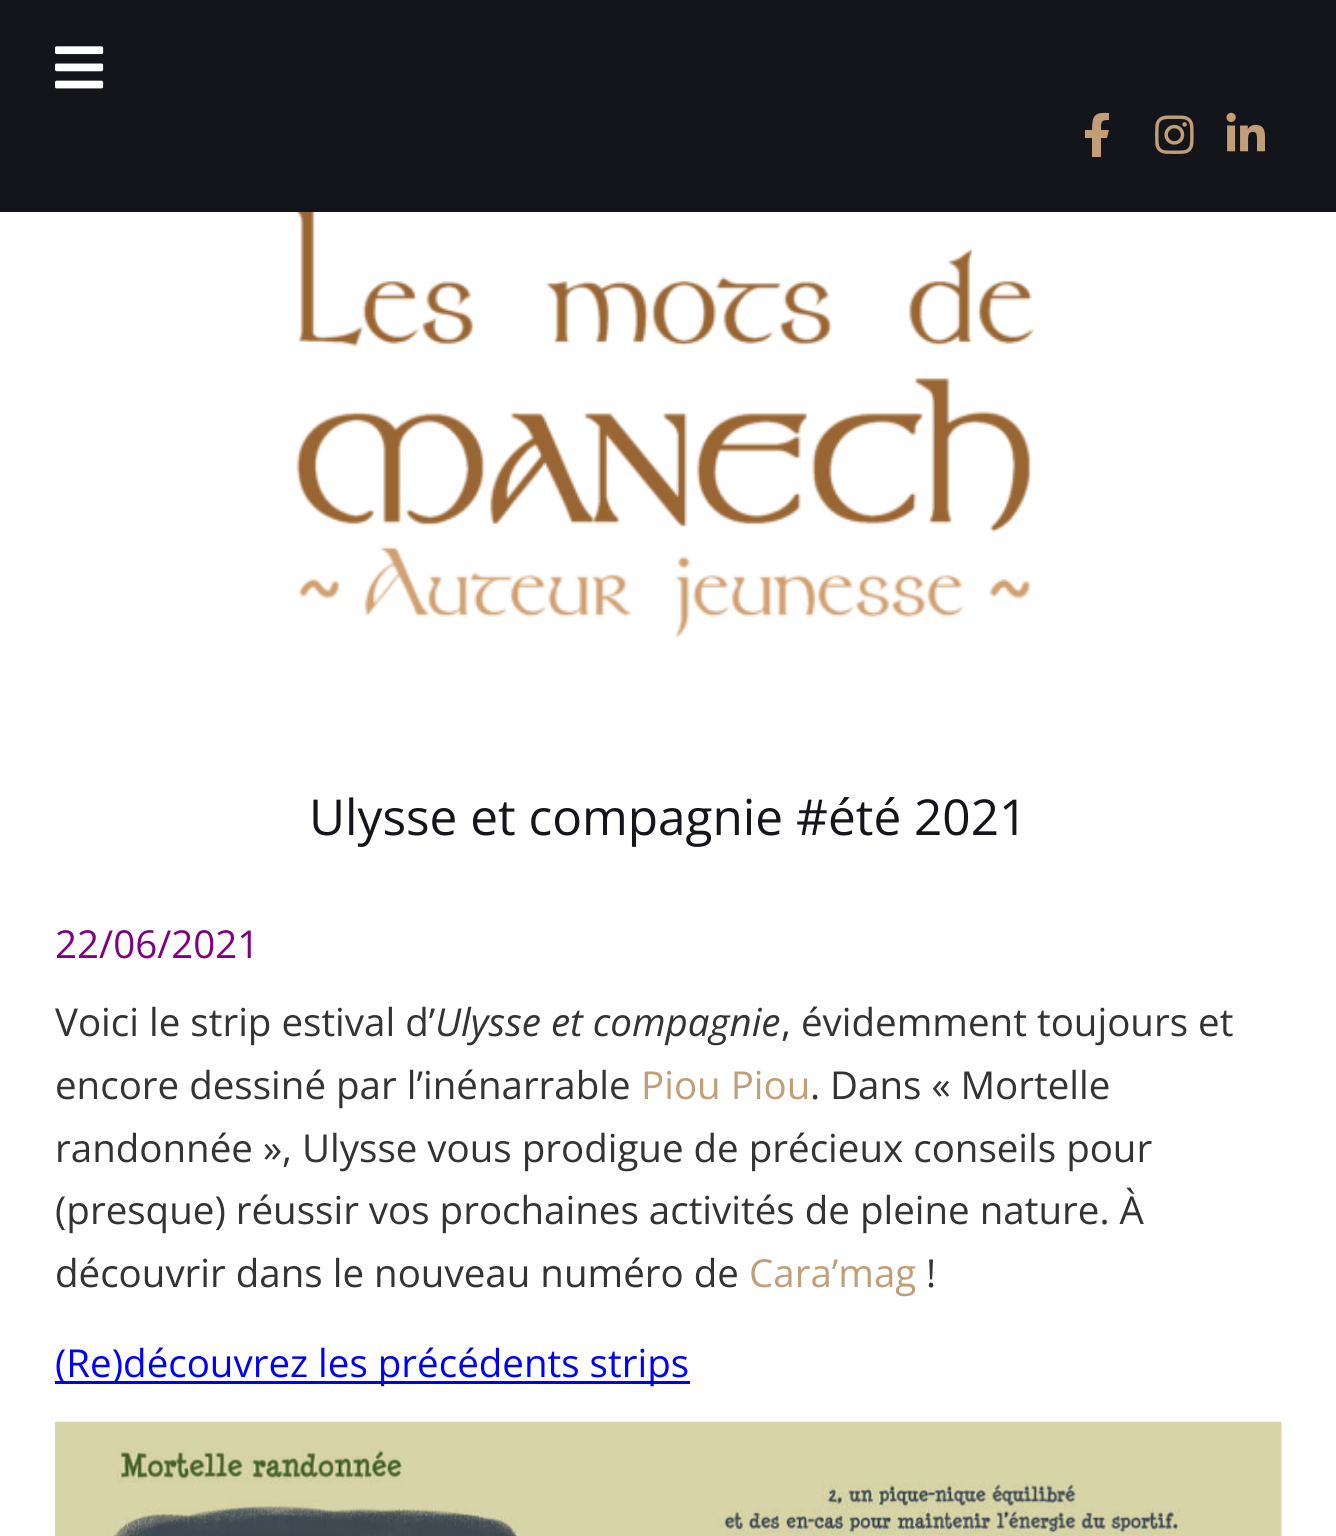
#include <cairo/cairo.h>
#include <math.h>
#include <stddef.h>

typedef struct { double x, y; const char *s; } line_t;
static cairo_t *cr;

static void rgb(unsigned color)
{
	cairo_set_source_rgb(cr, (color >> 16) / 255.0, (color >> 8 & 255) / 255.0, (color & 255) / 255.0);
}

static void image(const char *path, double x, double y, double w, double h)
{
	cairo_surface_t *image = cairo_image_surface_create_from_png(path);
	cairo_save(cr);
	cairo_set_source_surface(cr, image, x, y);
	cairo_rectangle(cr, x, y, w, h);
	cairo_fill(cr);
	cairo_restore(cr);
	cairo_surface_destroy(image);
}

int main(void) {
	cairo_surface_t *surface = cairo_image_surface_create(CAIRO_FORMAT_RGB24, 1336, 1536);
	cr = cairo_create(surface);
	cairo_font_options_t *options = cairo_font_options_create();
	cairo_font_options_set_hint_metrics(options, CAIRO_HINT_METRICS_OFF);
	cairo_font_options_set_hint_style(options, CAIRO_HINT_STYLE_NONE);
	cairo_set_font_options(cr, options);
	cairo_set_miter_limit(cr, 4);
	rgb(0xffffff);
	cairo_paint(cr);
	rgb(0x14141b);
	cairo_rectangle(cr, 0, 0, 1336, 212);
	cairo_fill(cr);
	image("img/1.png", 55, 46, 49, 43);
	rgb(0xc09e77);
	cairo_new_path(cr);
	cairo_move_to(cr, 1107, 138);
	cairo_line_to(cr, 1101, 138);
	cairo_line_to(cr, 1101, 157);
	cairo_line_to(cr, 1092, 157);
	cairo_line_to(cr, 1092, 138);
	cairo_line_to(cr, 1085, 138);
	cairo_line_to(cr, 1085, 130);
	cairo_line_to(cr, 1092, 130);
	cairo_curve_to(cr, 1092, 115, 1095, 112, 1109, 113);
	cairo_line_to(cr, 1109, 120);
	cairo_curve_to(cr, 1101, 120, 1101, 121, 1101, 130);
	cairo_line_to(cr, 1109, 130);
	cairo_close_path(cr);
	cairo_fill(cr);
	image("img/2.png", 1155, 115, 39, 39);
	image("img/3.png", 1226, 112, 39, 40);
	image("img/4.png", 294, 212, 740, 426);
	rgb(0x0000ff);
	cairo_rectangle(cr, 55, 1381, 635, 3);
	cairo_fill(cr);
	image("img/5.png", 55, 1421, 1227, 115);
	cairo_select_font_face(cr, "Open Sans", CAIRO_FONT_SLANT_NORMAL, CAIRO_FONT_WEIGHT_NORMAL);
	cairo_set_font_size(cr, 49.5);
	rgb(0x14141b);
	cairo_move_to(cr, 309, 835);
	cairo_show_text(cr, "Ulysse et compagnie #été 2021");
	cairo_set_font_size(cr, 38.5);
	rgb(0x800080);
	cairo_move_to(cr, 55, 958);
	cairo_show_text(cr, "22/06/2021");
	rgb(0x333333);
	cairo_move_to(cr, 55, 1036);
	cairo_show_text(cr, "Voici le strip estival d’");
	cairo_select_font_face(cr, "Open Sans", CAIRO_FONT_SLANT_ITALIC, CAIRO_FONT_WEIGHT_NORMAL);
	cairo_move_to(cr, 435, 1036);
	cairo_show_text(cr, "Ulysse et compagnie");
	cairo_select_font_face(cr, "Open Sans", CAIRO_FONT_SLANT_NORMAL, CAIRO_FONT_WEIGHT_NORMAL);
	cairo_move_to(cr, 781, 1036);
	cairo_show_text(cr, ", évidemment toujours et");
	cairo_move_to(cr, 55, 1099);
	cairo_show_text(cr, "encore dessiné par l’inénarrable");
	rgb(0xc09e77);
	cairo_move_to(cr, 641, 1099);
	cairo_show_text(cr, "Piou Piou");
	rgb(0x333333);
	{
		static const line_t items[] = {
			{810, 1099, ". Dans « Mortelle"},
			{55, 1162, "randonnée », Ulysse vous prodigue de précieux conseils pour"},
			{55, 1224, "(presque) réussir vos prochaines activités de pleine nature. À"},
			{55, 1287, "découvrir dans le nouveau numéro de"},
		};
		for (size_t i = 0; i < sizeof items / sizeof *items; i++) {
			cairo_move_to(cr, items[i].x, items[i].y);
			cairo_show_text(cr, items[i].s);
		}
	}
	rgb(0xc09e77);
	cairo_move_to(cr, 749, 1287);
	cairo_show_text(cr, "Cara’mag");
	rgb(0x333333);
	cairo_move_to(cr, 926, 1287);
	cairo_show_text(cr, "!");
	rgb(0x0000ff);
	cairo_move_to(cr, 55, 1377);
	cairo_show_text(cr, "(Re)découvrez les précédents strips");
	cairo_surface_write_to_png(surface, "page.png");
	cairo_font_options_destroy(options);
	cairo_destroy(cr);
	cairo_surface_destroy(surface);
	return 0;
}
